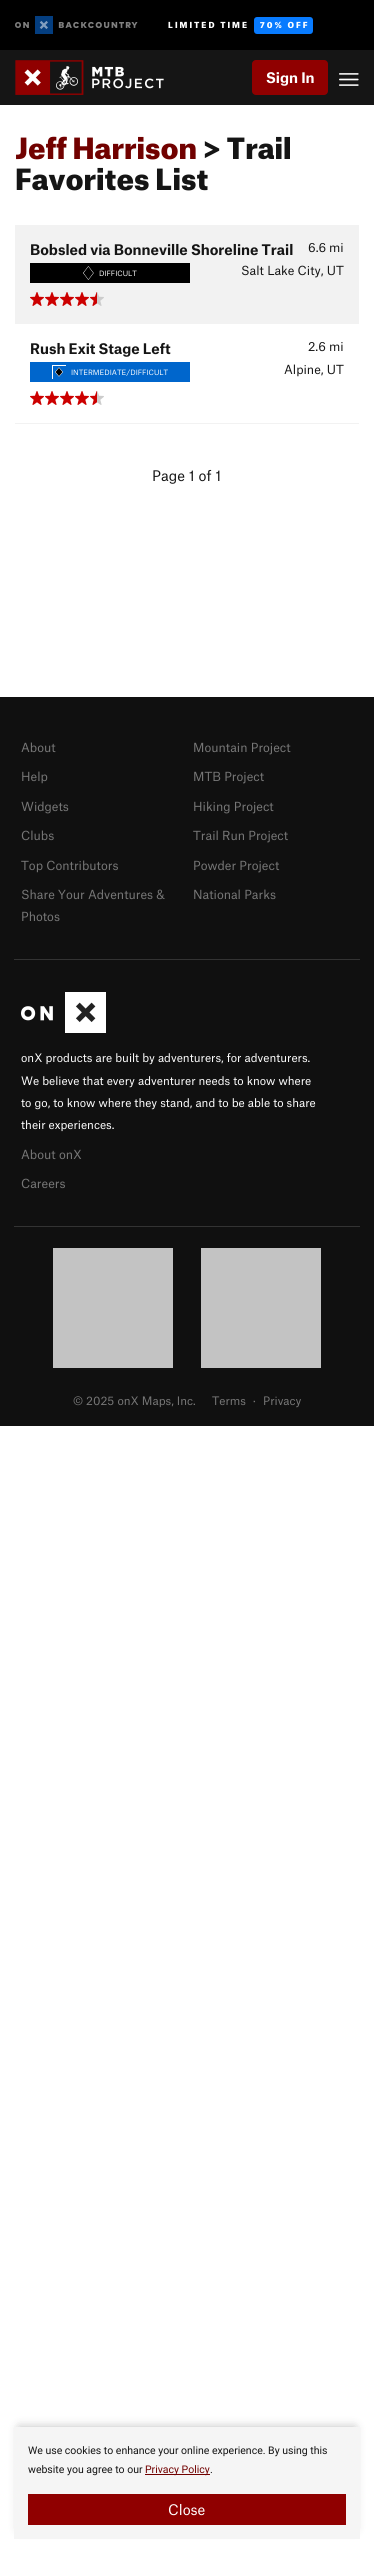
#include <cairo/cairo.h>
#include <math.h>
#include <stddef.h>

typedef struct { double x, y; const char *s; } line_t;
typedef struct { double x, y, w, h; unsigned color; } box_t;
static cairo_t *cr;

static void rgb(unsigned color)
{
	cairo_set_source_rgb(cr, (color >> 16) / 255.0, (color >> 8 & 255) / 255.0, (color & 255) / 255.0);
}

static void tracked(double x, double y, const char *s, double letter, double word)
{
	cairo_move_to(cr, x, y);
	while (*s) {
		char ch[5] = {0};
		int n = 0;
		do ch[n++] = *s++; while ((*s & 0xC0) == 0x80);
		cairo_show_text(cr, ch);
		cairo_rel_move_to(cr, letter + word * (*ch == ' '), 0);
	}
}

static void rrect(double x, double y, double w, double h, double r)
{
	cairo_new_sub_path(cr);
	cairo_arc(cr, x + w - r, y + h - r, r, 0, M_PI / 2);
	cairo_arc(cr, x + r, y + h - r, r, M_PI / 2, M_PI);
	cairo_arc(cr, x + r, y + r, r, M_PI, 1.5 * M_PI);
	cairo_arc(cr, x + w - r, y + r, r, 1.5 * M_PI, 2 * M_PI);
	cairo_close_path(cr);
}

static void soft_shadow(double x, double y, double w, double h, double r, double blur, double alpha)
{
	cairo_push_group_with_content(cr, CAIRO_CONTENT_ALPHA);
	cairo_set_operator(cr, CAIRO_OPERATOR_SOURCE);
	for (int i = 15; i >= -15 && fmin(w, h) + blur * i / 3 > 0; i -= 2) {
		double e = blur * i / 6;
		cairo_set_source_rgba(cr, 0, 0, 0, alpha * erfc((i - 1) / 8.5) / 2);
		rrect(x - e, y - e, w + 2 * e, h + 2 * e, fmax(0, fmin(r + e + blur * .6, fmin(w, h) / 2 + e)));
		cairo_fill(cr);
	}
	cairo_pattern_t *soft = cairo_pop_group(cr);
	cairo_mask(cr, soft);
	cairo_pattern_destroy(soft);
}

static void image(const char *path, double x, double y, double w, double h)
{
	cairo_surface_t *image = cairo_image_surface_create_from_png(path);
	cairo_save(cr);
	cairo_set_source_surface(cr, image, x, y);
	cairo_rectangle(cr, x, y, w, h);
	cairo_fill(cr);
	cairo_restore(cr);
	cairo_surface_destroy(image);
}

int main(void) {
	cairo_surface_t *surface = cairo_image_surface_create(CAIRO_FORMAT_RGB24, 374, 2567);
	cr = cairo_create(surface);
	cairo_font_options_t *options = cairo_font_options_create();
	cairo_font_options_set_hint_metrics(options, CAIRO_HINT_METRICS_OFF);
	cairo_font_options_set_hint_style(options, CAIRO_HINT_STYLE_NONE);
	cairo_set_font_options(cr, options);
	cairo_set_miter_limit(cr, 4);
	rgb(0xffffff);
	cairo_paint(cr);
	rgb(0x151515);
	cairo_rectangle(cr, 0, 50, 374, 55);
	cairo_fill(cr);
	rgb(0x000000);
	cairo_rectangle(cr, 0, 0, 374, 50);
	cairo_fill(cr);
	image("img/1.png", 15, 16, 123, 18);
	rgb(0x087bff);
	rrect(254, 17, 59, 17, 3);
	cairo_fill(cr);
	image("img/2.png", 15, 60, 149, 35);
	rgb(0x900000);
	rrect(252, 60, 76, 35, 4);
	cairo_fill(cr);
	image("img/3.png", 339, 73, 20, 13);
	{
		static const box_t items[] = {
			{15, 423, 344, 1, 0xf2f2f2},
			{15, 225, 344, 99, 0xf2f2f2},
			{30, 263, 160, 20, 0x000000},
		};
		for (size_t i = 0; i < sizeof items / sizeof *items; i++) {
			rgb(items[i].color);
			cairo_rectangle(cr, items[i].x, items[i].y, items[i].w, items[i].h);
			cairo_fill(cr);
		}
	}
	image("img/4.png", 83, 266, 11, 14);
	image("img/5.png", 30, 292, 14, 14);
	image("img/5.png", 45, 292, 14, 14);
	image("img/5.png", 60, 292, 14, 14);
	image("img/5.png", 75, 292, 14, 14);
	image("img/6.png", 90, 292, 14, 14);
	rgb(0x0066cc);
	cairo_rectangle(cr, 30, 362, 160, 20);
	cairo_fill(cr);
	image("img/7.png", 52, 365, 14, 14);
	image("img/8.png", 30, 391, 14, 14);
	image("img/8.png", 45, 391, 14, 14);
	image("img/8.png", 60, 391, 14, 14);
	image("img/8.png", 75, 391, 14, 14);
	image("img/9.png", 90, 391, 14, 14);
	{
		static const box_t items[] = {
			{0, 697, 374, 729, 0x101010},
			{14, 959, 346, 1, 0x333333},
			{14, 1226, 346, 1, 0x333333},
		};
		for (size_t i = 0; i < sizeof items / sizeof *items; i++) {
			rgb(items[i].color);
			cairo_rectangle(cr, items[i].x, items[i].y, items[i].w, items[i].h);
			cairo_fill(cr);
		}
	}
	image("img/10.png", 21, 992, 85, 41);
	rgb(0xc3c3c3);
	cairo_rectangle(cr, 53, 1248, 120, 120);
	cairo_fill(cr);
	cairo_rectangle(cr, 201, 1248, 120, 120);
	cairo_fill(cr);
	rgb(0x000000);
	soft_shadow(19, 2427, 336, 102, 0, 5, 0.25);
	{
		static const box_t items[] = {
			{14, 2427, 346, 112, 0xf5f5f5},
			{145, 2474, 65, 1, 0x710100},
			{28, 2494, 318, 31, 0x900000},
		};
		for (size_t i = 0; i < sizeof items / sizeof *items; i++) {
			rgb(items[i].color);
			cairo_rectangle(cr, items[i].x, items[i].y, items[i].w, items[i].h);
			cairo_fill(cr);
		}
	}
	cairo_select_font_face(cr, "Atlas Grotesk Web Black", CAIRO_FONT_SLANT_NORMAL, CAIRO_FONT_WEIGHT_NORMAL);
	cairo_set_font_size(cr, 8);
	rgb(0xffffff);
	tracked(168, 28, "LIMITED TIME", 2, 0);
	tracked(260, 28, "70% OFF", 2, 0);
	cairo_select_font_face(cr, "Atlas Grotesk Web", CAIRO_FONT_SLANT_NORMAL, CAIRO_FONT_WEIGHT_BOLD);
	cairo_set_font_size(cr, 14);
	cairo_move_to(cr, 266, 83);
	cairo_show_text(cr, "Sign In");
	cairo_select_font_face(cr, "Atlas Grotesk Web Black", CAIRO_FONT_SLANT_NORMAL, CAIRO_FONT_WEIGHT_NORMAL);
	cairo_set_font_size(cr, 28);
	rgb(0x710100);
	cairo_move_to(cr, 15, 159);
	cairo_show_text(cr, "Jeff Harrison");
	rgb(0x151515);
	cairo_move_to(cr, 203, 159);
	cairo_show_text(cr, "> Trail");
	cairo_move_to(cr, 15, 190);
	cairo_show_text(cr, "Favorites List");
	cairo_select_font_face(cr, "Atlas Grotesk Web", CAIRO_FONT_SLANT_NORMAL, CAIRO_FONT_WEIGHT_BOLD);
	cairo_set_font_size(cr, 14);
	cairo_move_to(cr, 30, 255);
	cairo_show_text(cr, "Bobsled via Bonneville Shoreline Trail");
	cairo_select_font_face(cr, "Atlas Grotesk Web", CAIRO_FONT_SLANT_NORMAL, CAIRO_FONT_WEIGHT_NORMAL);
	cairo_set_font_size(cr, 12);
	cairo_move_to(cr, 308, 252);
	cairo_show_text(cr, "6.6");
	cairo_move_to(cr, 329, 252);
	cairo_show_text(cr, "mi");
	cairo_set_font_size(cr, 7);
	rgb(0xffffff);
	cairo_move_to(cr, 99, 276);
	cairo_show_text(cr, "DIFFICULT");
	cairo_set_font_size(cr, 12);
	rgb(0x151515);
	cairo_move_to(cr, 241, 275);
	cairo_show_text(cr, "Salt Lake City, UT");
	cairo_select_font_face(cr, "Atlas Grotesk Web", CAIRO_FONT_SLANT_NORMAL, CAIRO_FONT_WEIGHT_BOLD);
	cairo_set_font_size(cr, 14);
	cairo_move_to(cr, 30, 354);
	cairo_show_text(cr, "Rush Exit Stage Left");
	cairo_select_font_face(cr, "Atlas Grotesk Web", CAIRO_FONT_SLANT_NORMAL, CAIRO_FONT_WEIGHT_NORMAL);
	cairo_set_font_size(cr, 12);
	cairo_move_to(cr, 308, 351);
	cairo_show_text(cr, "2.6");
	cairo_move_to(cr, 329, 351);
	cairo_show_text(cr, "mi");
	cairo_set_font_size(cr, 7);
	rgb(0xffffff);
	cairo_move_to(cr, 71, 375);
	cairo_show_text(cr, "INTERMEDIATE/DIFFICULT");
	cairo_set_font_size(cr, 12);
	rgb(0x151515);
	cairo_move_to(cr, 284, 374);
	cairo_show_text(cr, "Alpine, UT");
	cairo_set_font_size(cr, 14);
	cairo_move_to(cr, 152, 481);
	cairo_show_text(cr, "Page 1 of 1");
	cairo_set_font_size(cr, 12);
	rgb(0x777777);
	{
		static const line_t items[] = {
			{21, 752, "About"},
			{193, 752, "Mountain Project"},
			{21, 781, "Help"},
			{193, 781, "MTB Project"},
			{21, 811, "Widgets"},
			{193, 811, "Hiking Project"},
			{21, 840, "Clubs"},
			{193, 840, "Trail Run Project"},
			{21, 870, "Top Contributors"},
			{193, 870, "Powder Project"},
			{21, 899, "Share Your Adventures &"},
			{21, 921, "Photos"},
			{193, 899, "National Parks"},
		};
		for (size_t i = 0; i < sizeof items / sizeof *items; i++) {
			cairo_move_to(cr, items[i].x, items[i].y);
			cairo_show_text(cr, items[i].s);
		}
	}
	cairo_set_font_size(cr, 11.2);
	rgb(0xffffff);
	{
		static const line_t items[] = {
			{21, 1062, "onX products are built by adventurers, for adventurers."},
			{21, 1085, "We believe that every adventurer needs to know where"},
			{21, 1107, "to go, to know where they stand, and to be able to share"},
			{21, 1129, "their experiences."},
		};
		for (size_t i = 0; i < sizeof items / sizeof *items; i++) {
			cairo_move_to(cr, items[i].x, items[i].y);
			cairo_show_text(cr, items[i].s);
		}
	}
	cairo_set_font_size(cr, 12);
	rgb(0x777777);
	cairo_move_to(cr, 21, 1159);
	cairo_show_text(cr, "About onX");
	cairo_move_to(cr, 21, 1188);
	cairo_show_text(cr, "Careers");
	cairo_set_font_size(cr, 11.2);
	{
		static const line_t items[] = {
			{73, 1405, "© 2025 onX Maps, Inc."},
			{212, 1405, "Terms"},
			{253, 1405, "·"},
			{263, 1405, "Privacy"},
		};
		for (size_t i = 0; i < sizeof items / sizeof *items; i++) {
			cairo_move_to(cr, items[i].x, items[i].y);
			cairo_show_text(cr, items[i].s);
		}
	}
	cairo_select_font_face(cr, "Roboto", CAIRO_FONT_SLANT_NORMAL, CAIRO_FONT_WEIGHT_NORMAL);
	cairo_set_font_size(cr, 10.5);
	rgb(0x151515);
	cairo_move_to(cr, 28, 2454);
	cairo_show_text(cr, "We use cookies to enhance your online experience. By using this");
	cairo_move_to(cr, 28, 2473);
	cairo_show_text(cr, "website you agree to our");
	rgb(0x710100);
	cairo_move_to(cr, 145, 2473);
	cairo_show_text(cr, "Privacy Policy");
	rgb(0x151515);
	cairo_move_to(cr, 210, 2473);
	cairo_show_text(cr, ".");
	cairo_select_font_face(cr, "Atlas Grotesk Web", CAIRO_FONT_SLANT_NORMAL, CAIRO_FONT_WEIGHT_NORMAL);
	cairo_set_font_size(cr, 14);
	rgb(0xffffff);
	cairo_move_to(cr, 168, 2515);
	cairo_show_text(cr, "Close");
	cairo_surface_write_to_png(surface, "page.png");
	cairo_font_options_destroy(options);
	cairo_destroy(cr);
	cairo_surface_destroy(surface);
	return 0;
}
